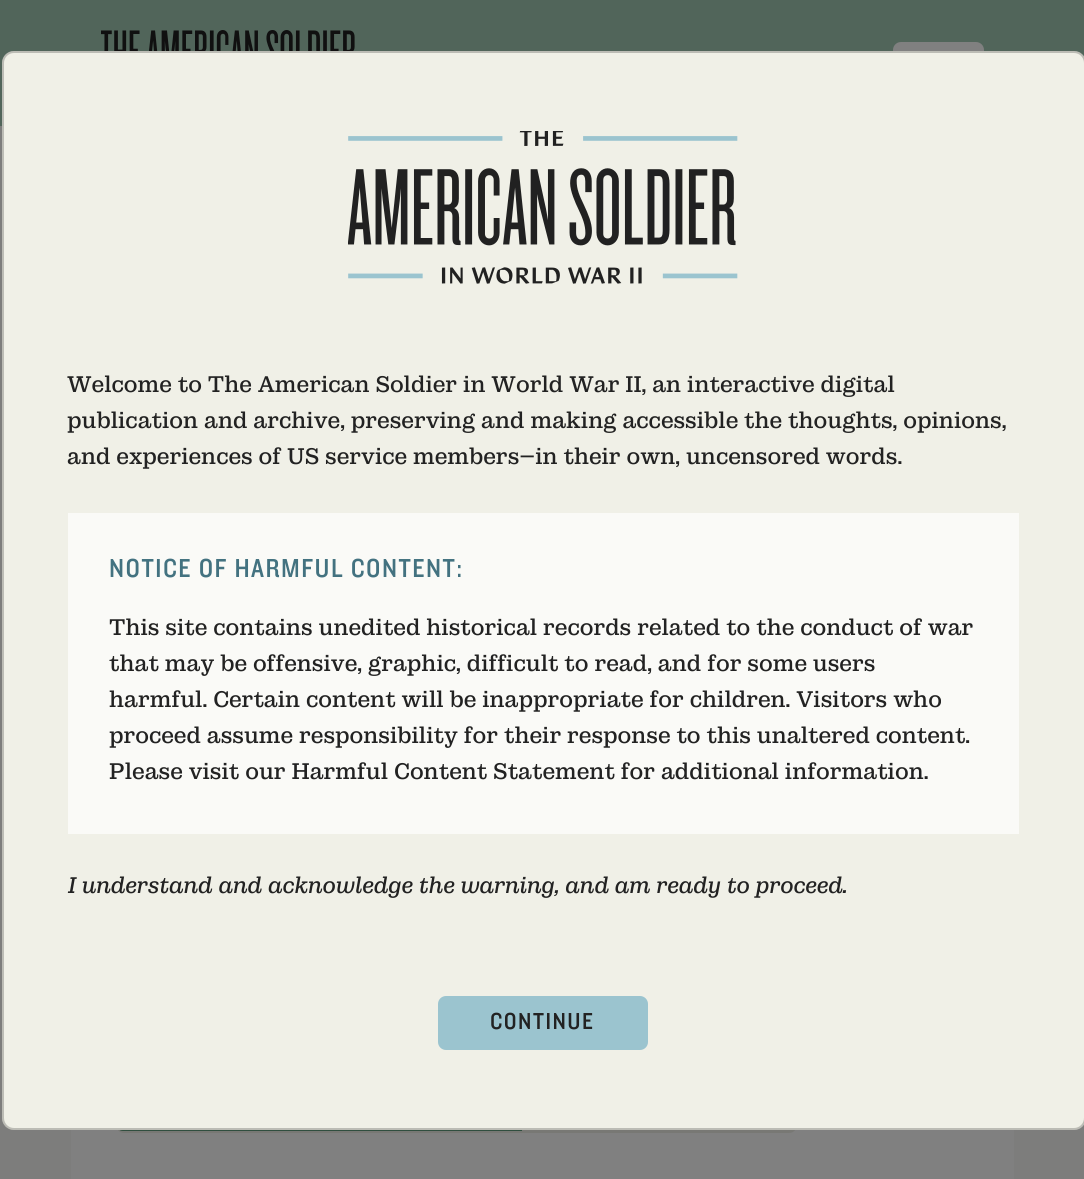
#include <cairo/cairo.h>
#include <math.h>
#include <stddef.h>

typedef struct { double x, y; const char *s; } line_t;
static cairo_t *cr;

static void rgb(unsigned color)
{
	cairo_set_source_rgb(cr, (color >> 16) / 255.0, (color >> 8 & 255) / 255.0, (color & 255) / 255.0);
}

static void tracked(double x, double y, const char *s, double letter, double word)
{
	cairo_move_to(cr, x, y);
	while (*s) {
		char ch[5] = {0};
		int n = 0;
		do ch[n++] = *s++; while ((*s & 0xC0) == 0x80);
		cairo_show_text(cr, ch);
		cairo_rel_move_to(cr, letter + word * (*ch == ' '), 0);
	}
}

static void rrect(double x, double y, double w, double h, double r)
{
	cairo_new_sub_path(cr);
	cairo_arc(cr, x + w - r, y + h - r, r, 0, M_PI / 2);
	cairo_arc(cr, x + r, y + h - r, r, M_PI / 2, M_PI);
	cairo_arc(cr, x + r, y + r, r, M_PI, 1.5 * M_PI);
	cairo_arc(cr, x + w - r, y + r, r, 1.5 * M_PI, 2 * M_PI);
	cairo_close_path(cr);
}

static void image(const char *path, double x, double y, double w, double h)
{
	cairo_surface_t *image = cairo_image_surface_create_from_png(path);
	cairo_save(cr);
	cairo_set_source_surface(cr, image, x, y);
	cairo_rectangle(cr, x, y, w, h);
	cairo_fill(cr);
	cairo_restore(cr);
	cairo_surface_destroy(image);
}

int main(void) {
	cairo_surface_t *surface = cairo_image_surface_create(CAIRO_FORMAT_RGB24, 1084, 1179);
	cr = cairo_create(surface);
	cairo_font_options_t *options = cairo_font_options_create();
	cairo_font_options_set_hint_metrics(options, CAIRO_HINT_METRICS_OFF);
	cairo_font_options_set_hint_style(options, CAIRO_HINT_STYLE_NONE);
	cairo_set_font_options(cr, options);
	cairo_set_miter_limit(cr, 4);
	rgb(0x7d7d7c);
	cairo_paint(cr);
	rgb(0x51655a);
	cairo_rectangle(cr, 0, 0, 1084, 126);
	cairo_fill(cr);
	image("img/1.png", 101, 30, 254, 21);
	rgb(0x808080);
	rrect(893, 42, 91, 41, 8);
	cairo_fill(cr);
	cairo_rectangle(cr, 71, 1130, 943, 49);
	cairo_fill(cr);
	rgb(0x787874);
	rrect(117, 1107, 679, 25, 7);
	cairo_fill_preserve(cr);
	cairo_stroke(cr);
	rgb(0x304e3f);
	cairo_new_path(cr);
	cairo_move_to(cr, 123, 1107);
	cairo_line_to(cr, 522, 1107);
	cairo_line_to(cr, 522, 1131);
	cairo_line_to(cr, 123, 1131);
	cairo_curve_to(cr, 119.5, 1131, 117, 1128.5, 117, 1125);
	cairo_line_to(cr, 117, 1113);
	cairo_curve_to(cr, 117, 1109.5, 119.5, 1107, 123, 1107);
	cairo_close_path(cr);
	cairo_fill(cr);
	rgb(0xf0f0e7);
	rrect(2, 51, 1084, 1079, 12);
	cairo_fill(cr);
	rrect(3, 52, 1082, 1077, 11);
	cairo_set_source_rgba(cr, 0.129, 0.129, 0.129, 0.25);
	cairo_stroke(cr);
	image("img/2.png", 348, 131, 390, 153);
	rgb(0xfafaf7);
	cairo_rectangle(cr, 68, 513, 951, 321);
	cairo_fill(cr);
	rgb(0x9bc4cf);
	rrect(438, 996, 210, 54, 8);
	cairo_fill(cr);
	cairo_select_font_face(cr, "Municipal", CAIRO_FONT_SLANT_NORMAL, CAIRO_FONT_WEIGHT_NORMAL);
	cairo_set_font_size(cr, 22.5);
	rgb(0x222222);
	{
		static const line_t items[] = {
			{67, 392, "Welcome to The American Soldier in World War II, an interactive digital"},
			{67, 428, "publication and archive, preserving and making accessible the thoughts, opinions,"},
			{67, 464, "and experiences of US service members—in their own, uncensored words."},
		};
		for (size_t i = 0; i < sizeof items / sizeof *items; i++) {
			cairo_move_to(cr, items[i].x, items[i].y);
			cairo_show_text(cr, items[i].s);
		}
	}
	cairo_select_font_face(cr, "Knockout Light", CAIRO_FONT_SLANT_NORMAL, CAIRO_FONT_WEIGHT_NORMAL);
	cairo_set_font_size(cr, 27);
	rgb(0x437280);
	tracked(109, 577, "NOTICE OF HARMFUL CONTENT:", 1.5, 0);
	cairo_select_font_face(cr, "Municipal", CAIRO_FONT_SLANT_NORMAL, CAIRO_FONT_WEIGHT_NORMAL);
	cairo_set_font_size(cr, 22.5);
	rgb(0x222222);
	{
		static const line_t items[] = {
			{109, 635, "This site contains unedited historical records related to the conduct of war"},
			{109, 671, "that may be offensive, graphic, difficult to read, and for some users"},
			{109, 707, "harmful. Certain content will be inappropriate for children. Visitors who"},
			{109, 743, "proceed assume responsibility for their response to this unaltered content."},
			{109, 779, "Please visit our Harmful Content Statement for additional information."},
		};
		for (size_t i = 0; i < sizeof items / sizeof *items; i++) {
			cairo_move_to(cr, items[i].x, items[i].y);
			cairo_show_text(cr, items[i].s);
		}
	}
	cairo_select_font_face(cr, "Municipal", CAIRO_FONT_SLANT_ITALIC, CAIRO_FONT_WEIGHT_NORMAL);
	cairo_move_to(cr, 67, 893);
	cairo_show_text(cr, "I understand and acknowledge the warning, and am ready to proceed.");
	cairo_select_font_face(cr, "Knockout Light", CAIRO_FONT_SLANT_NORMAL, CAIRO_FONT_WEIGHT_NORMAL);
	cairo_set_font_size(cr, 24);
	tracked(490, 1029, "CONTINUE", 1.5, 0);
	cairo_surface_write_to_png(surface, "page.png");
	cairo_font_options_destroy(options);
	cairo_destroy(cr);
	cairo_surface_destroy(surface);
	return 0;
}
